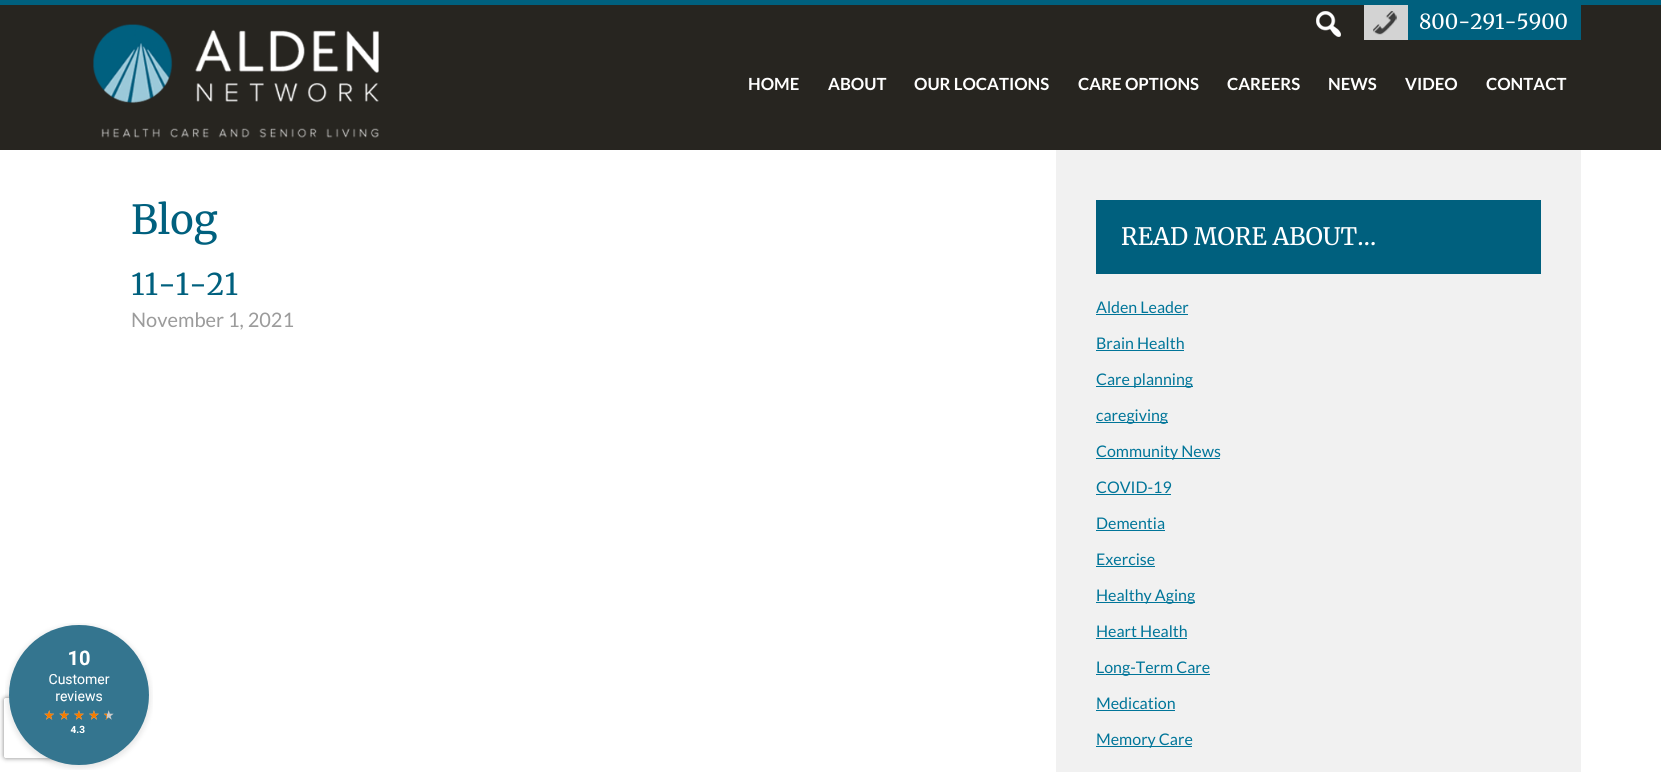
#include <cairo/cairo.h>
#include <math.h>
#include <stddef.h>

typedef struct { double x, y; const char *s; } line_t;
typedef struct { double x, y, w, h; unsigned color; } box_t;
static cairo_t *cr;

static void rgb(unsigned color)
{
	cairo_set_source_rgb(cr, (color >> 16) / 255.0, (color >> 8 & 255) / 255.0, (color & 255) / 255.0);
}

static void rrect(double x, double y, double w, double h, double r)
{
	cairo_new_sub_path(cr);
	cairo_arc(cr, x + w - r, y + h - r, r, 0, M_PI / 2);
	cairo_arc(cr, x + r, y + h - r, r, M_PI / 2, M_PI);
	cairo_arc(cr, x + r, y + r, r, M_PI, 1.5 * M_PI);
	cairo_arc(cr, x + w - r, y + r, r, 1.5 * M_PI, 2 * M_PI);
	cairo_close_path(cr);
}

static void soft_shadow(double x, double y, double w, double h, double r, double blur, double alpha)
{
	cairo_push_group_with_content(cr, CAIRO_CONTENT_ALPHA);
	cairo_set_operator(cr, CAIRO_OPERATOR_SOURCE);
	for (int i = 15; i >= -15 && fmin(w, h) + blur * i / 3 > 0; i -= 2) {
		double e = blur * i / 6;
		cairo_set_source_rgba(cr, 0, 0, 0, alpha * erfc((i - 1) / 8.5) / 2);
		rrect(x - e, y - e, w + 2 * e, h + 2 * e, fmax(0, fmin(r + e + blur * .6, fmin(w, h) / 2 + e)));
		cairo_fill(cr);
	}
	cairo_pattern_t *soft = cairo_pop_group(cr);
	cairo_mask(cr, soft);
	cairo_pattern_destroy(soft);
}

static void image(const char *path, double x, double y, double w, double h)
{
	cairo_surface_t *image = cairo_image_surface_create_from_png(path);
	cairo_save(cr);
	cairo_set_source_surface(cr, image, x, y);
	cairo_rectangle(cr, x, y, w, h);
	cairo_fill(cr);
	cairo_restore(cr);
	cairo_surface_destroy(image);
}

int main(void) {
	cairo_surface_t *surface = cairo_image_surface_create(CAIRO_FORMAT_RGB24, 1661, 772);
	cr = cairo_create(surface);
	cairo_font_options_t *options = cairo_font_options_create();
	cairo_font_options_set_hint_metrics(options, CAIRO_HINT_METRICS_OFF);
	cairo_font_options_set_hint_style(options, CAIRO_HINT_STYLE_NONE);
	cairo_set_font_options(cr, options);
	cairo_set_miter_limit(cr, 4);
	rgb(0xffffff);
	cairo_paint(cr);
	cairo_save(cr);
	cairo_set_fill_rule(cr, CAIRO_FILL_RULE_EVEN_ODD);
	cairo_new_path(cr);
	cairo_move_to(cr, 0, 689);
	cairo_line_to(cr, 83, 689);
	cairo_line_to(cr, 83, 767);
	cairo_line_to(cr, 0, 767);
	cairo_close_path(cr);
	cairo_move_to(cr, 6, 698);
	cairo_line_to(cr, 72, 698);
	cairo_curve_to(cr, 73, 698, 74, 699, 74, 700);
	cairo_line_to(cr, 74, 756);
	cairo_curve_to(cr, 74, 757, 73, 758, 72, 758);
	cairo_line_to(cr, 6, 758);
	cairo_curve_to(cr, 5, 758, 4, 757, 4, 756);
	cairo_line_to(cr, 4, 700);
	cairo_curve_to(cr, 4, 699, 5, 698, 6, 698);
	cairo_close_path(cr);
	cairo_clip(cr);
	rgb(0x808080);
	soft_shadow(4, 698, 70, 60, 2, 2.5, 1);
	cairo_restore(cr);
	image("img/1.png", 5, 623, 148, 147);
	rgb(0x272520);
	cairo_rectangle(cr, 0, 5, 1661, 145);
	cairo_fill(cr);
	rgb(0x00607e);
	cairo_rectangle(cr, 0, 0, 1661, 5);
	cairo_fill(cr);
	image("img/2.png", 1316, 11, 25, 26);
	cairo_rectangle(cr, 1408, 5, 173, 35);
	cairo_fill(cr);
	image("img/3.png", 1364, 5, 44, 35);
	image("img/4.png", 93, 24, 286, 114);
	{
		static const box_t items[] = {
			{1056, 150, 525, 622, 0xf1f1f1},
			{1096, 200, 445, 74, 0x00607e},
			{1096, 314, 92, 1, 0x007599},
			{1096, 350, 88, 1, 0x007599},
			{1096, 386, 97, 1, 0x007599},
			{1096, 422, 72, 1, 0x007599},
			{1096, 458, 124, 1, 0x007599},
			{1096, 494, 75, 1, 0x007599},
			{1096, 530, 69, 1, 0x007599},
			{1096, 566, 59, 1, 0x007599},
			{1096, 602, 99, 1, 0x007599},
			{1096, 638, 91, 1, 0x007599},
			{1096, 674, 114, 1, 0x007599},
			{1096, 710, 79, 1, 0x007599},
			{1096, 746, 96, 1, 0x007599},
		};
		for (size_t i = 0; i < sizeof items / sizeof *items; i++) {
			rgb(items[i].color);
			cairo_rectangle(cr, items[i].x, items[i].y, items[i].w, items[i].h);
			cairo_fill(cr);
		}
	}
	cairo_select_font_face(cr, "Merriweather", CAIRO_FONT_SLANT_NORMAL, CAIRO_FONT_WEIGHT_NORMAL);
	cairo_set_font_size(cr, 20.75);
	rgb(0xffffff);
	cairo_move_to(cr, 1419, 29);
	cairo_show_text(cr, "800-291-5900");
	cairo_select_font_face(cr, "Lato", CAIRO_FONT_SLANT_NORMAL, CAIRO_FONT_WEIGHT_BOLD);
	cairo_set_font_size(cr, 16.75);
	{
		static const line_t items[] = {
			{748, 90, "HOME"},
			{828, 90, "ABOUT"},
			{914, 90, "OUR LOCATIONS"},
			{1078, 90, "CARE OPTIONS"},
			{1227, 90, "CAREERS"},
			{1328, 90, "NEWS"},
			{1405, 90, "VIDEO"},
			{1486, 90, "CONTACT"},
		};
		for (size_t i = 0; i < sizeof items / sizeof *items; i++) {
			cairo_move_to(cr, items[i].x, items[i].y);
			cairo_show_text(cr, items[i].s);
		}
	}
	cairo_select_font_face(cr, "Merriweather", CAIRO_FONT_SLANT_NORMAL, CAIRO_FONT_WEIGHT_NORMAL);
	cairo_set_font_size(cr, 40);
	rgb(0x00607e);
	cairo_move_to(cr, 131, 234);
	cairo_show_text(cr, "Blog");
	cairo_set_font_size(cr, 30);
	cairo_move_to(cr, 131, 295);
	cairo_show_text(cr, "11-1-21");
	cairo_select_font_face(cr, "Lato", CAIRO_FONT_SLANT_NORMAL, CAIRO_FONT_WEIGHT_NORMAL);
	cairo_set_font_size(cr, 20);
	rgb(0x9b9b9b);
	cairo_move_to(cr, 131, 327);
	cairo_show_text(cr, "November 1, 2021");
	cairo_select_font_face(cr, "Merriweather", CAIRO_FONT_SLANT_NORMAL, CAIRO_FONT_WEIGHT_NORMAL);
	cairo_set_font_size(cr, 24);
	rgb(0xffffff);
	cairo_move_to(cr, 1121, 245);
	cairo_show_text(cr, "READ MORE ABOUT…");
	cairo_select_font_face(cr, "Lato", CAIRO_FONT_SLANT_NORMAL, CAIRO_FONT_WEIGHT_NORMAL);
	cairo_set_font_size(cr, 16);
	rgb(0x007599);
	{
		static const line_t items[] = {
			{1096, 313, "Alden Leader"},
			{1096, 349, "Brain Health"},
			{1096, 385, "Care planning"},
			{1096, 421, "caregiving"},
			{1096, 457, "Community News"},
			{1096, 493, "COVID-19"},
			{1096, 529, "Dementia"},
			{1096, 565, "Exercise"},
			{1096, 601, "Healthy Aging"},
			{1096, 637, "Heart Health"},
			{1096, 673, "Long-Term Care"},
			{1096, 709, "Medication"},
			{1096, 745, "Memory Care"},
		};
		for (size_t i = 0; i < sizeof items / sizeof *items; i++) {
			cairo_move_to(cr, items[i].x, items[i].y);
			cairo_show_text(cr, items[i].s);
		}
	}
	cairo_surface_write_to_png(surface, "page.png");
	cairo_font_options_destroy(options);
	cairo_destroy(cr);
	cairo_surface_destroy(surface);
	return 0;
}
